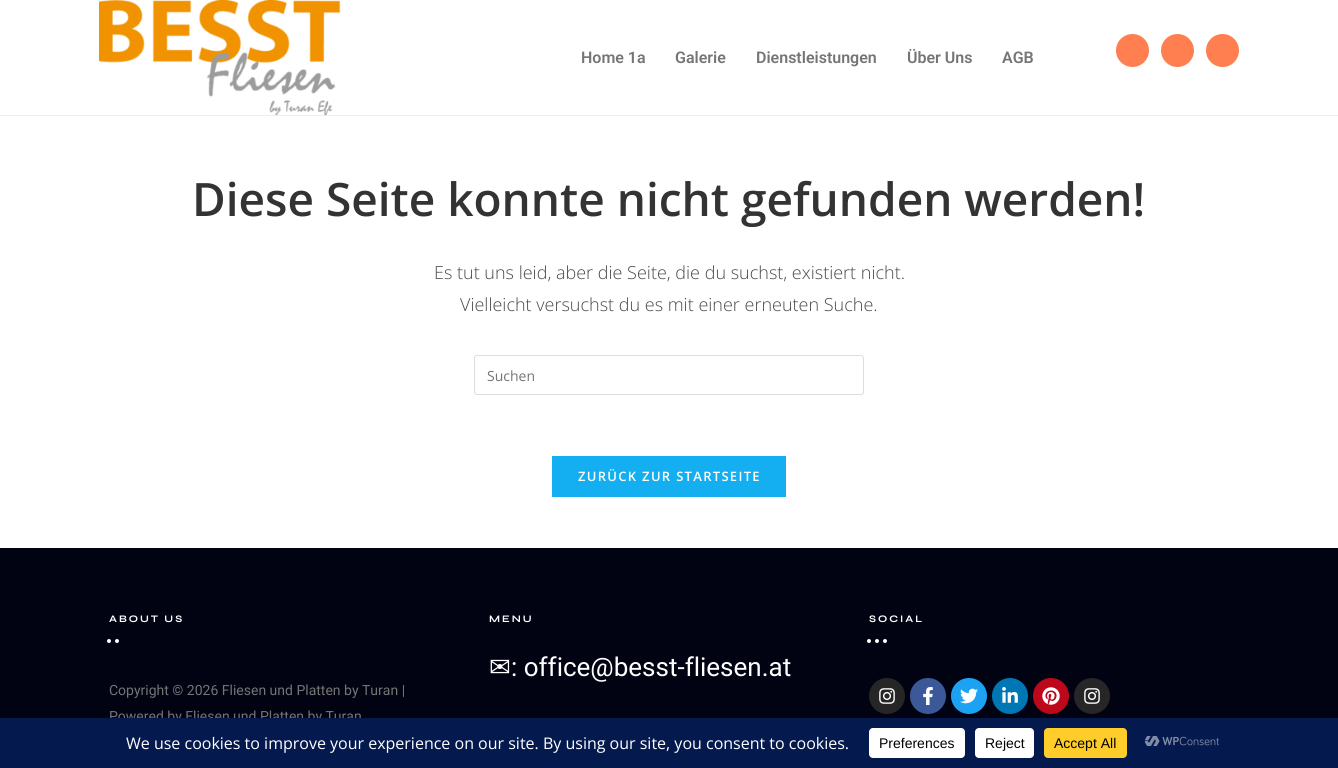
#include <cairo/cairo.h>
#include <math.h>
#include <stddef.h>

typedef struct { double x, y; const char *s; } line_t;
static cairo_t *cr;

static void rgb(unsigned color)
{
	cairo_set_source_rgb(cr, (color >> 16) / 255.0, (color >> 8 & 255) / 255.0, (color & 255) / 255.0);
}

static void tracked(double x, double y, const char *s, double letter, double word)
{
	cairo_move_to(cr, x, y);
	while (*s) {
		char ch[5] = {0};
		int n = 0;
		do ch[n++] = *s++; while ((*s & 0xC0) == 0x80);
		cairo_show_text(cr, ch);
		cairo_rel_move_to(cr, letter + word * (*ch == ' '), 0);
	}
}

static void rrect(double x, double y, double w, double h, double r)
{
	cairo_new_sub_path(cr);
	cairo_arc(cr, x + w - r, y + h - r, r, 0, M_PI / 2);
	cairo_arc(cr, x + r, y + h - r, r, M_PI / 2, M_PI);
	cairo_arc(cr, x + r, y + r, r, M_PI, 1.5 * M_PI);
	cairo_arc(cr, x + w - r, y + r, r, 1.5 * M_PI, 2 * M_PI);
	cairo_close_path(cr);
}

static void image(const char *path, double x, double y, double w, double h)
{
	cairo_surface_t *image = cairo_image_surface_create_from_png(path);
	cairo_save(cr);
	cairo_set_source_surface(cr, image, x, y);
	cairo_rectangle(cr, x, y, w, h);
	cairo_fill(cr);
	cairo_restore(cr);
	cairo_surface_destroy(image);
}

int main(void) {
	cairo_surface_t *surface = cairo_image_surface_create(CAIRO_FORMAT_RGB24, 1338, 768);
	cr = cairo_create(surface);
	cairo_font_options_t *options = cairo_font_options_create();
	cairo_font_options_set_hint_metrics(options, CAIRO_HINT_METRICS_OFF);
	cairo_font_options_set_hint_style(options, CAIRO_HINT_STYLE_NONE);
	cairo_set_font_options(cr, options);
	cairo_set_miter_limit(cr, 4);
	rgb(0xffffff);
	cairo_paint(cr);
	rgb(0xefefef);
	cairo_rectangle(cr, 0, 115, 1338, 1);
	cairo_fill(cr);
	image("img/1.png", 99, 0, 242, 115);
	rgb(0xff7f50);
	cairo_arc(cr, 1132.5, 50.5, 16.5, 0, 2 * M_PI);
	cairo_fill(cr);
	cairo_arc(cr, 1177.5, 50.5, 16.5, 0, 2 * M_PI);
	cairo_fill(cr);
	cairo_arc(cr, 1222.5, 50.5, 16.5, 0, 2 * M_PI);
	cairo_fill(cr);
	rrect(474.5, 355.5, 389, 39, 2.5);
	rgb(0xdddddd);
	cairo_set_line_width(cr, 1);
	cairo_stroke(cr);
	rgb(0x13aff0);
	cairo_rectangle(cr, 552, 456, 234, 41);
	cairo_fill(cr);
	rgb(0x010212);
	cairo_rectangle(cr, 0, 548, 1338, 170);
	cairo_fill(cr);
	cairo_new_path(cr);
	cairo_move_to(cr, 109, 641);
	cairo_line_to(cr, 124, 641);
	rgb(0xffffff);
	cairo_set_line_width(cr, 4);
	cairo_set_line_cap(cr, CAIRO_LINE_CAP_ROUND);
	cairo_set_dash(cr, (double[]){0, 8}, 2, 0);
	cairo_stroke(cr);
	cairo_new_path(cr);
	cairo_move_to(cr, 869, 641);
	cairo_line_to(cr, 887, 641);
	cairo_stroke(cr);
	rgb(0x262626);
	cairo_arc(cr, 887, 696, 18, 0, 2 * M_PI);
	cairo_fill(cr);
	image("img/2.png", 879, 688, 16, 16);
	rgb(0x3b5998);
	cairo_arc(cr, 928, 696, 18, 0, 2 * M_PI);
	cairo_fill(cr);
	image("img/3.png", 923, 687, 10, 18);
	rgb(0x1da1f2);
	cairo_arc(cr, 969, 696, 18, 0, 2 * M_PI);
	cairo_fill(cr);
	image("img/4.png", 960, 688, 18, 16);
	rgb(0x0077b5);
	cairo_arc(cr, 1010, 696, 18, 0, 2 * M_PI);
	cairo_fill(cr);
	image("img/5.png", 1002, 687, 16, 16);
	rgb(0xbd081c);
	cairo_arc(cr, 1051, 696, 18, 0, 2 * M_PI);
	cairo_fill(cr);
	image("img/6.png", 1042, 687, 18, 18);
	rgb(0x262626);
	cairo_arc(cr, 1092, 696, 18, 0, 2 * M_PI);
	cairo_fill(cr);
	image("img/2.png", 1084, 688, 16, 16);
	cairo_select_font_face(cr, "Roboto SemiBold", CAIRO_FONT_SLANT_NORMAL, CAIRO_FONT_WEIGHT_NORMAL);
	cairo_set_font_size(cr, 16);
	rgb(0x757575);
	{
		static const line_t items[] = {
			{581, 63, "Home 1a"},
			{675, 63, "Galerie"},
			{756, 63, "Dienstleistungen"},
			{907, 63, "Über Uns"},
			{1002, 63, "AGB"},
		};
		for (size_t i = 0; i < sizeof items / sizeof *items; i++) {
			cairo_move_to(cr, items[i].x, items[i].y);
			cairo_show_text(cr, items[i].s);
		}
	}
	cairo_select_font_face(cr, "Open Sans SemiBold", CAIRO_FONT_SLANT_NORMAL, CAIRO_FONT_WEIGHT_NORMAL);
	cairo_set_font_size(cr, 46);
	rgb(0x333333);
	cairo_move_to(cr, 192, 216);
	cairo_show_text(cr, "Diese Seite konnte nicht gefunden werden!");
	cairo_select_font_face(cr, "Open Sans Light", CAIRO_FONT_SLANT_NORMAL, CAIRO_FONT_WEIGHT_NORMAL);
	cairo_set_font_size(cr, 18);
	rgb(0x4a4a4a);
	cairo_move_to(cr, 434, 279);
	cairo_show_text(cr, "Es tut uns leid, aber die Seite, die du suchst, existiert nicht.");
	cairo_move_to(cr, 460, 311);
	cairo_show_text(cr, "Vielleicht versuchst du es mit einer erneuten Suche.");
	cairo_select_font_face(cr, "Open Sans", CAIRO_FONT_SLANT_NORMAL, CAIRO_FONT_WEIGHT_NORMAL);
	cairo_set_font_size(cr, 14);
	rgb(0x757575);
	cairo_move_to(cr, 487, 381);
	cairo_show_text(cr, "Suchen");
	cairo_select_font_face(cr, "Open Sans SemiBold", CAIRO_FONT_SLANT_NORMAL, CAIRO_FONT_WEIGHT_NORMAL);
	cairo_set_font_size(cr, 13);
	rgb(0xffffff);
	tracked(578, 481, "ZURÜCK ZUR STARTSEITE", 1.3, 0);
	cairo_select_font_face(cr, "Syne", CAIRO_FONT_SLANT_NORMAL, CAIRO_FONT_WEIGHT_BOLD);
	cairo_set_font_size(cr, 10);
	tracked(109, 622, "ABOUT US", 2, 0);
	cairo_select_font_face(cr, "Roboto", CAIRO_FONT_SLANT_NORMAL, CAIRO_FONT_WEIGHT_NORMAL);
	cairo_set_font_size(cr, 14);
	rgb(0x757575);
	cairo_move_to(cr, 109, 695);
	cairo_show_text(cr, "Copyright © 2026 Fliesen und Platten by Turan |");
	cairo_move_to(cr, 109, 721);
	cairo_show_text(cr, "Powered by Fliesen und Platten by Turan");
	cairo_select_font_face(cr, "Syne", CAIRO_FONT_SLANT_NORMAL, CAIRO_FONT_WEIGHT_BOLD);
	cairo_set_font_size(cr, 10);
	rgb(0xffffff);
	tracked(489, 622, "MENU", 2, 0);
	cairo_select_font_face(cr, "DejaVu Sans", CAIRO_FONT_SLANT_NORMAL, CAIRO_FONT_WEIGHT_NORMAL);
	cairo_set_font_size(cr, 26);
	cairo_move_to(cr, 489, 676);
	cairo_show_text(cr, "✉");
	cairo_select_font_face(cr, "Roboto", CAIRO_FONT_SLANT_NORMAL, CAIRO_FONT_WEIGHT_NORMAL);
	cairo_move_to(cr, 511, 676);
	cairo_show_text(cr, ": office@besst-fliesen.at");
	cairo_select_font_face(cr, "Syne", CAIRO_FONT_SLANT_NORMAL, CAIRO_FONT_WEIGHT_BOLD);
	cairo_set_font_size(cr, 10);
	tracked(869, 622, "SOCIAL", 2, 0);
	rgb(0x04194e);
	cairo_rectangle(cr, 0, 718, 1338, 50);
	cairo_fill(cr);
	cairo_select_font_face(cr, "Open Sans", CAIRO_FONT_SLANT_NORMAL, CAIRO_FONT_WEIGHT_NORMAL);
	cairo_set_font_size(cr, 16);
	rgb(0xffffff);
	cairo_move_to(cr, 126, 749);
	cairo_show_text(cr, "We use cookies to improve your experience on our site. By using our site, you consent to cookies.");
	rrect(869, 728, 96, 30, 4);
	cairo_fill(cr);
	cairo_select_font_face(cr, "Liberation Sans", CAIRO_FONT_SLANT_NORMAL, CAIRO_FONT_WEIGHT_NORMAL);
	cairo_set_font_size(cr, 14);
	rgb(0x000000);
	cairo_move_to(cr, 879, 748);
	cairo_show_text(cr, "Preferences");
	rgb(0xffffff);
	rrect(975, 728, 59, 30, 4);
	cairo_fill(cr);
	rgb(0x000000);
	cairo_move_to(cr, 985, 748);
	cairo_show_text(cr, "Reject");
	rgb(0xffcd2a);
	rrect(1044, 728, 83, 30, 4);
	cairo_fill(cr);
	rgb(0x000000);
	cairo_move_to(cr, 1054, 748);
	cairo_show_text(cr, "Accept All");
	image("img/7.png", 1144, 736, 75, 11);
	cairo_surface_write_to_png(surface, "page.png");
	cairo_font_options_destroy(options);
	cairo_destroy(cr);
	cairo_surface_destroy(surface);
	return 0;
}
